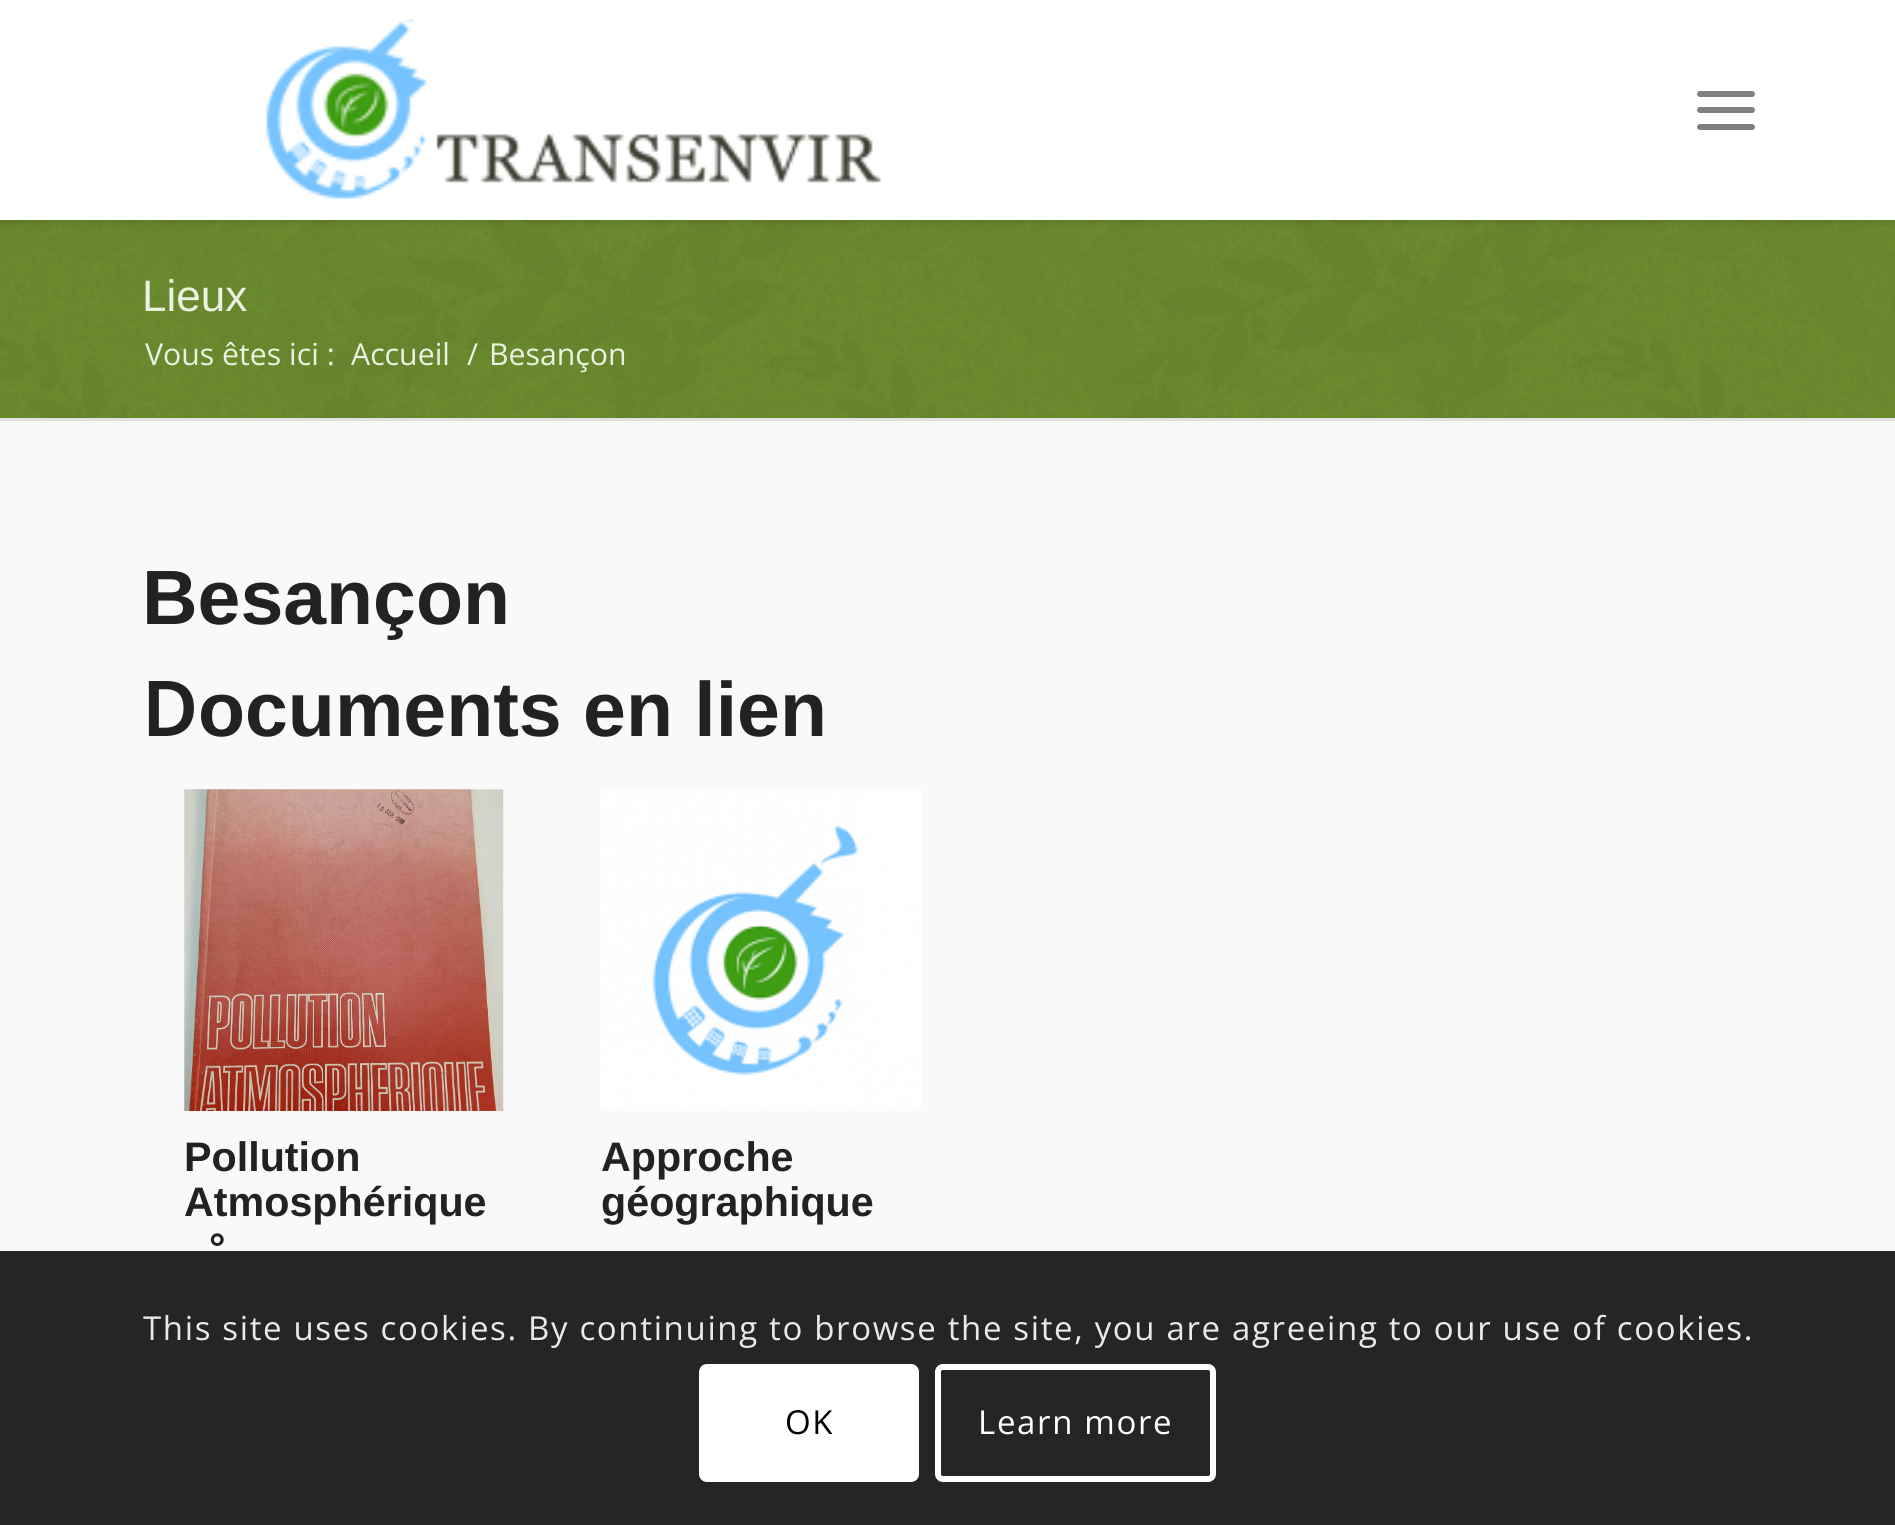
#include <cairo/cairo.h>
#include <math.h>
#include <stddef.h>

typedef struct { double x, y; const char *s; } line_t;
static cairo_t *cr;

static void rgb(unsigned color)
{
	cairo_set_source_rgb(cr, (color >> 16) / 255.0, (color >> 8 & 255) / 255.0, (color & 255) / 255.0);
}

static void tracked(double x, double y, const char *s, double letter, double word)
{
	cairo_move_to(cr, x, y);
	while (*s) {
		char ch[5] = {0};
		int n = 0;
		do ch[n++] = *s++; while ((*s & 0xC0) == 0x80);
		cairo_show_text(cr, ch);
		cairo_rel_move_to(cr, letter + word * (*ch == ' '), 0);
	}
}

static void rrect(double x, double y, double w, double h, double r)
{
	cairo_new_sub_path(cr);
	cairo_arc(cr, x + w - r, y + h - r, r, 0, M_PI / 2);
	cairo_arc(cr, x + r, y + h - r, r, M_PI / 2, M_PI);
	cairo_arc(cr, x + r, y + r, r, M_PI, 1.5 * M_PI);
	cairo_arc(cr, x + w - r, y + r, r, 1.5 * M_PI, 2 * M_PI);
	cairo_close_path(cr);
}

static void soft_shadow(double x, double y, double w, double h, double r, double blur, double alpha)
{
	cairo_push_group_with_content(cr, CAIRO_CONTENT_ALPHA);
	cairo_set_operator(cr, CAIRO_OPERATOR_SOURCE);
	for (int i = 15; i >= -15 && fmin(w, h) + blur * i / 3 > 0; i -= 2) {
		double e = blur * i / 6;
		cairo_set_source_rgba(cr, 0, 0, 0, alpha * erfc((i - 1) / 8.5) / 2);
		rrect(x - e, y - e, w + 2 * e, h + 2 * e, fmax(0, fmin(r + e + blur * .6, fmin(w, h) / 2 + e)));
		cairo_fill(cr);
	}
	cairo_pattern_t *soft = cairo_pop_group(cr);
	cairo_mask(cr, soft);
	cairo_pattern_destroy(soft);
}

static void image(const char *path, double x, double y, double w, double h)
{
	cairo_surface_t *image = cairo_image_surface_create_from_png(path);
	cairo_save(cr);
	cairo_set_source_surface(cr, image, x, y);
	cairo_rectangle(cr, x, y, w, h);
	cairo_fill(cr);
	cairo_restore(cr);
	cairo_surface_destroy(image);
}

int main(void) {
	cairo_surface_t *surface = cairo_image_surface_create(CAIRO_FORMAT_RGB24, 1895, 1525);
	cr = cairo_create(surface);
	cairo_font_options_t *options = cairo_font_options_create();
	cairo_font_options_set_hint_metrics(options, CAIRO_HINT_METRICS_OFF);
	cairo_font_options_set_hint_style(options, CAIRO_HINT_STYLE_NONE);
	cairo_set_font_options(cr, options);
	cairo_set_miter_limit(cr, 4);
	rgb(0x719430);
	cairo_paint(cr);
	image("img/2.png", 0, 220, 1895, 198);
	rgb(0x000000);
	soft_shadow(-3, -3, 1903, 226, 0, 3, 0.1);
	rgb(0xffffff);
	cairo_rectangle(cr, 0, 0, 1895, 220);
	cairo_fill(cr);
	image("img/1.png", 266, 19, 615, 180);
	rgb(0x808080);
	rrect(1697, 107, 58, 6, 3);
	cairo_fill(cr);
	rrect(1697, 91, 58, 6, 3);
	cairo_fill(cr);
	rrect(1697, 124, 58, 6, 3);
	cairo_fill(cr);
	rgb(0xf9f9f9);
	cairo_rectangle(cr, 0, 421, 1895, 1104);
	cairo_fill(cr);
	rgb(0xe1e1e1);
	cairo_rectangle(cr, 0, 418, 1895, 3);
	cairo_fill(cr);
	image("img/3.png", 184, 789, 320, 322);
	image("img/4.png", 600, 789, 321, 322);
	cairo_set_source_rgba(cr, 0, 0, 0, 0.85);
	cairo_rectangle(cr, 0, 1251, 1895, 274);
	cairo_fill(cr);
	rgb(0xffffff);
	rrect(699, 1364, 220, 118, 8);
	cairo_fill(cr);
	rrect(938, 1367, 275, 112, 5);
	cairo_set_line_width(cr, 6);
	cairo_stroke(cr);
	cairo_select_font_face(cr, "Liberation Sans", CAIRO_FONT_SLANT_NORMAL, CAIRO_FONT_WEIGHT_NORMAL);
	cairo_set_font_size(cr, 44);
	rgb(0xecf2e1);
	cairo_move_to(cr, 142, 311);
	cairo_show_text(cr, "Lieux");
	cairo_select_font_face(cr, "Open Sans", CAIRO_FONT_SLANT_NORMAL, CAIRO_FONT_WEIGHT_NORMAL);
	cairo_set_font_size(cr, 30.25);
	{
		static const line_t items[] = {
			{145, 365, "Vous êtes ici :"},
			{351, 365, "Accueil"},
			{467, 365, "/"},
			{489, 365, "Besançon"},
		};
		for (size_t i = 0; i < sizeof items / sizeof *items; i++) {
			cairo_move_to(cr, items[i].x, items[i].y);
			cairo_show_text(cr, items[i].s);
		}
	}
	cairo_select_font_face(cr, "Liberation Sans", CAIRO_FONT_SLANT_NORMAL, CAIRO_FONT_WEIGHT_BOLD);
	cairo_set_font_size(cr, 77);
	rgb(0x222222);
	cairo_move_to(cr, 142, 624);
	cairo_show_text(cr, "Besançon");
	cairo_select_font_face(cr, "Noto Sans SemiBold", CAIRO_FONT_SLANT_NORMAL, CAIRO_FONT_WEIGHT_NORMAL);
	cairo_move_to(cr, 142, 736);
	cairo_show_text(cr, "D");
	cairo_select_font_face(cr, "Liberation Sans", CAIRO_FONT_SLANT_NORMAL, CAIRO_FONT_WEIGHT_BOLD);
	cairo_move_to(cr, 198, 736);
	cairo_show_text(cr, "ocuments en lien");
	cairo_set_font_size(cr, 41.25);
	{
		static const line_t items[] = {
			{184, 1171, "Pollution"},
			{184, 1216, "Atmosphérique"},
			{209, 1262, "°"},
			{601, 1171, "Approche"},
			{601, 1216, "géographique"},
		};
		for (size_t i = 0; i < sizeof items / sizeof *items; i++) {
			cairo_move_to(cr, items[i].x, items[i].y);
			cairo_show_text(cr, items[i].s);
		}
	}
	cairo_select_font_face(cr, "Open Sans", CAIRO_FONT_SLANT_NORMAL, CAIRO_FONT_WEIGHT_NORMAL);
	cairo_set_font_size(cr, 33);
	rgb(0xe9e9e9);
	tracked(143, 1340, "This site uses cookies. By continuing to browse the site, you are agreeing to our use of cookies.", 1.65, 0);
	rgb(0x000000);
	tracked(785, 1434, "OK", 1.65, 0);
	rgb(0xffffff);
	tracked(978, 1434, "Learn more", 1.65, 0);
	cairo_surface_write_to_png(surface, "page.png");
	cairo_font_options_destroy(options);
	cairo_destroy(cr);
	cairo_surface_destroy(surface);
	return 0;
}
